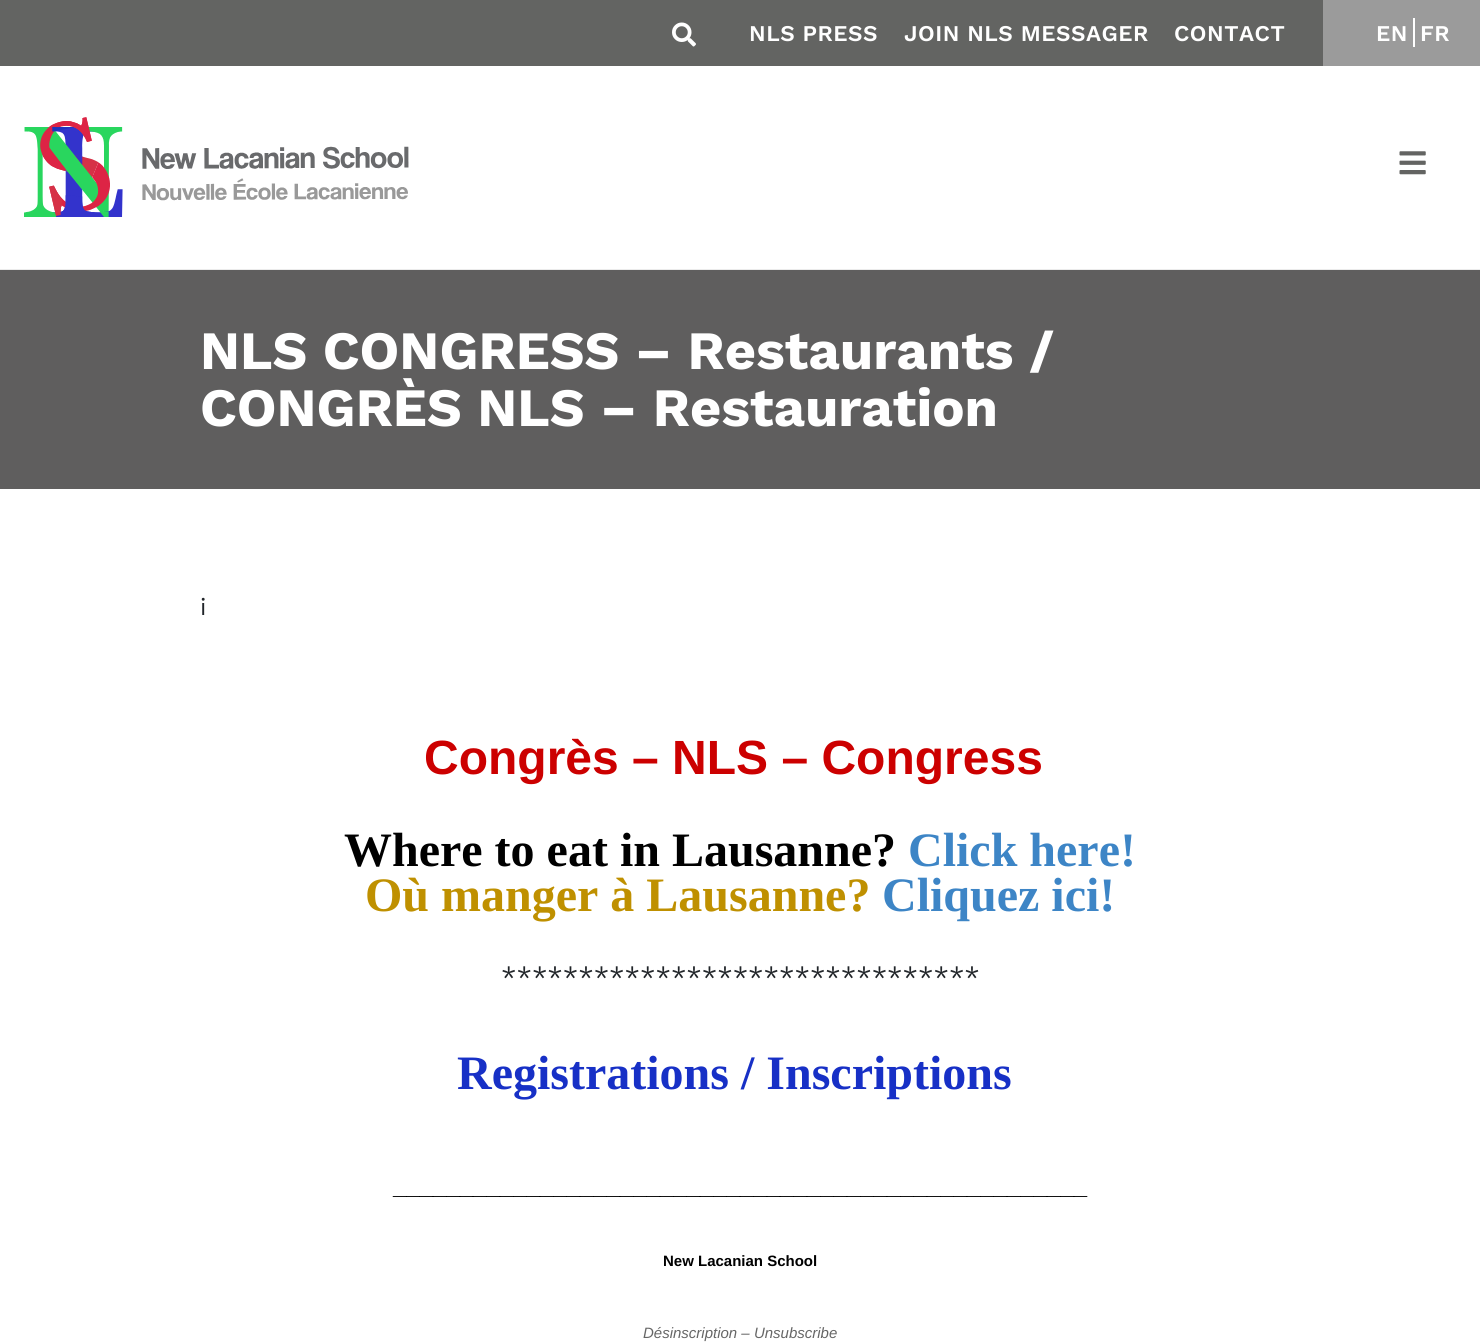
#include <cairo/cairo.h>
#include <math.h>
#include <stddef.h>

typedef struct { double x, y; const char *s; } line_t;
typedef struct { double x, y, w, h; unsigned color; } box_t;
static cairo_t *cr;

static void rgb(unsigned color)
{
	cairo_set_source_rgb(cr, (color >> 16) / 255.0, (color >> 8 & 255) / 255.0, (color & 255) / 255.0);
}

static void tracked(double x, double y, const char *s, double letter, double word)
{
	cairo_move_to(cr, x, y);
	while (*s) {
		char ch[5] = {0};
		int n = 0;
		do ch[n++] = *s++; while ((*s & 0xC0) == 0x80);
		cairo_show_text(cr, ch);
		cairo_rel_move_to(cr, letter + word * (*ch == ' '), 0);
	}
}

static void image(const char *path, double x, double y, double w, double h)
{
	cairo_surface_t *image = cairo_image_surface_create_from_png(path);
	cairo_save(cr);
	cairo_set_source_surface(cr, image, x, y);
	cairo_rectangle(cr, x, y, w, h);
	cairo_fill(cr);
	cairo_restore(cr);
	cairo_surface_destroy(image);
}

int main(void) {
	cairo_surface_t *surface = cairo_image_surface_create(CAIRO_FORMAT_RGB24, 1480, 1342);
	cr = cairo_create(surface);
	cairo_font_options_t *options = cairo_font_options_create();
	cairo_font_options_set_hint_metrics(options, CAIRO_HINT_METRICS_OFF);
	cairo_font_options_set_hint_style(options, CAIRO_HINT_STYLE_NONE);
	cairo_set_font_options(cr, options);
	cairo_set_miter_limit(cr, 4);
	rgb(0xffffff);
	cairo_paint(cr);
	rgb(0x636462);
	cairo_rectangle(cr, 0, 0, 1323, 66);
	cairo_fill(cr);
	image("img/1.png", 672, 22, 24, 25);
	{
		static const box_t items[] = {
			{1323, 0, 157, 66, 0x9b9b9b},
			{1413, 18, 2, 29, 0xffffff},
			{0, 269, 1480, 1, 0xebebeb},
		};
		for (size_t i = 0; i < sizeof items / sizeof *items; i++) {
			rgb(items[i].color);
			cairo_rectangle(cr, items[i].x, items[i].y, items[i].w, items[i].h);
			cairo_fill(cr);
		}
	}
	image("img/2.png", 24, 117, 385, 100);
	image("img/3.png", 1399, 151, 27, 24);
	rgb(0x5f5e5e);
	cairo_rectangle(cr, 0, 270, 1480, 219);
	cairo_fill(cr);
	cairo_select_font_face(cr, "Work Sans SemiBold", CAIRO_FONT_SLANT_NORMAL, CAIRO_FONT_WEIGHT_NORMAL);
	cairo_set_font_size(cr, 22.5);
	rgb(0xffffff);
	{
		static const line_t items[] = {
			{749, 41, "NLS PRESS"},
			{904, 41, "JOIN NLS MESSAGER"},
			{1174, 41, "CONTACT"},
			{1376, 41, "EN"},
			{1420, 41, "FR"},
		};
		for (size_t i = 0; i < sizeof items / sizeof *items; i++) {
			tracked(items[i].x, items[i].y, items[i].s, 0.5, 0);
		}
	}
	cairo_select_font_face(cr, "Work Sans", CAIRO_FONT_SLANT_NORMAL, CAIRO_FONT_WEIGHT_BOLD);
	cairo_set_font_size(cr, 54);
	cairo_move_to(cr, 200, 369);
	cairo_show_text(cr, "NLS CONGRESS – Restaurants /");
	cairo_move_to(cr, 200, 426);
	cairo_show_text(cr, "CONGRÈS NLS – Restauration");
	cairo_select_font_face(cr, "Work Sans", CAIRO_FONT_SLANT_NORMAL, CAIRO_FONT_WEIGHT_NORMAL);
	cairo_set_font_size(cr, 24);
	rgb(0x212529);
	cairo_move_to(cr, 200, 615);
	cairo_show_text(cr, "i");
	cairo_select_font_face(cr, "Liberation Sans", CAIRO_FONT_SLANT_NORMAL, CAIRO_FONT_WEIGHT_BOLD);
	cairo_set_font_size(cr, 48);
	rgb(0xcc0000);
	cairo_move_to(cr, 424, 774);
	cairo_show_text(cr, "Congrès – NLS – Congress");
	cairo_select_font_face(cr, "Liberation Serif", CAIRO_FONT_SLANT_NORMAL, CAIRO_FONT_WEIGHT_BOLD);
	rgb(0x000000);
	cairo_move_to(cr, 344, 866);
	cairo_show_text(cr, "Where to eat in Lausanne?");
	rgb(0x3d85c6);
	cairo_move_to(cr, 908, 866);
	cairo_show_text(cr, "Click here!");
	rgb(0xbf9000);
	cairo_move_to(cr, 365, 911);
	cairo_show_text(cr, "Où manger à Lausanne?");
	rgb(0x3d85c6);
	cairo_move_to(cr, 882, 911);
	cairo_show_text(cr, "Cliquez ici!");
	cairo_select_font_face(cr, "Work Sans", CAIRO_FONT_SLANT_NORMAL, CAIRO_FONT_WEIGHT_NORMAL);
	cairo_set_font_size(cr, 27);
	rgb(0x212529);
	cairo_move_to(cr, 501, 986);
	cairo_show_text(cr, "*******************************");
	cairo_select_font_face(cr, "Liberation Serif", CAIRO_FONT_SLANT_NORMAL, CAIRO_FONT_WEIGHT_BOLD);
	cairo_set_font_size(cr, 48);
	rgb(0x1730c6);
	cairo_move_to(cr, 457, 1089);
	cairo_show_text(cr, "Registrations / Inscriptions");
	cairo_select_font_face(cr, "Liberation Sans", CAIRO_FONT_SLANT_NORMAL, CAIRO_FONT_WEIGHT_BOLD);
	cairo_set_font_size(cr, 24);
	rgb(0x000000);
	cairo_move_to(cr, 393, 1194);
	cairo_show_text(cr, "____________________________________________________");
	cairo_set_font_size(cr, 15);
	cairo_move_to(cr, 663, 1266);
	cairo_show_text(cr, "New Lacanian School");
	cairo_select_font_face(cr, "Liberation Sans", CAIRO_FONT_SLANT_ITALIC, CAIRO_FONT_WEIGHT_NORMAL);
	rgb(0x666666);
	cairo_move_to(cr, 643, 1338);
	cairo_show_text(cr, "Désinscription – Unsubscribe");
	cairo_surface_write_to_png(surface, "page.png");
	cairo_font_options_destroy(options);
	cairo_destroy(cr);
	cairo_surface_destroy(surface);
	return 0;
}
